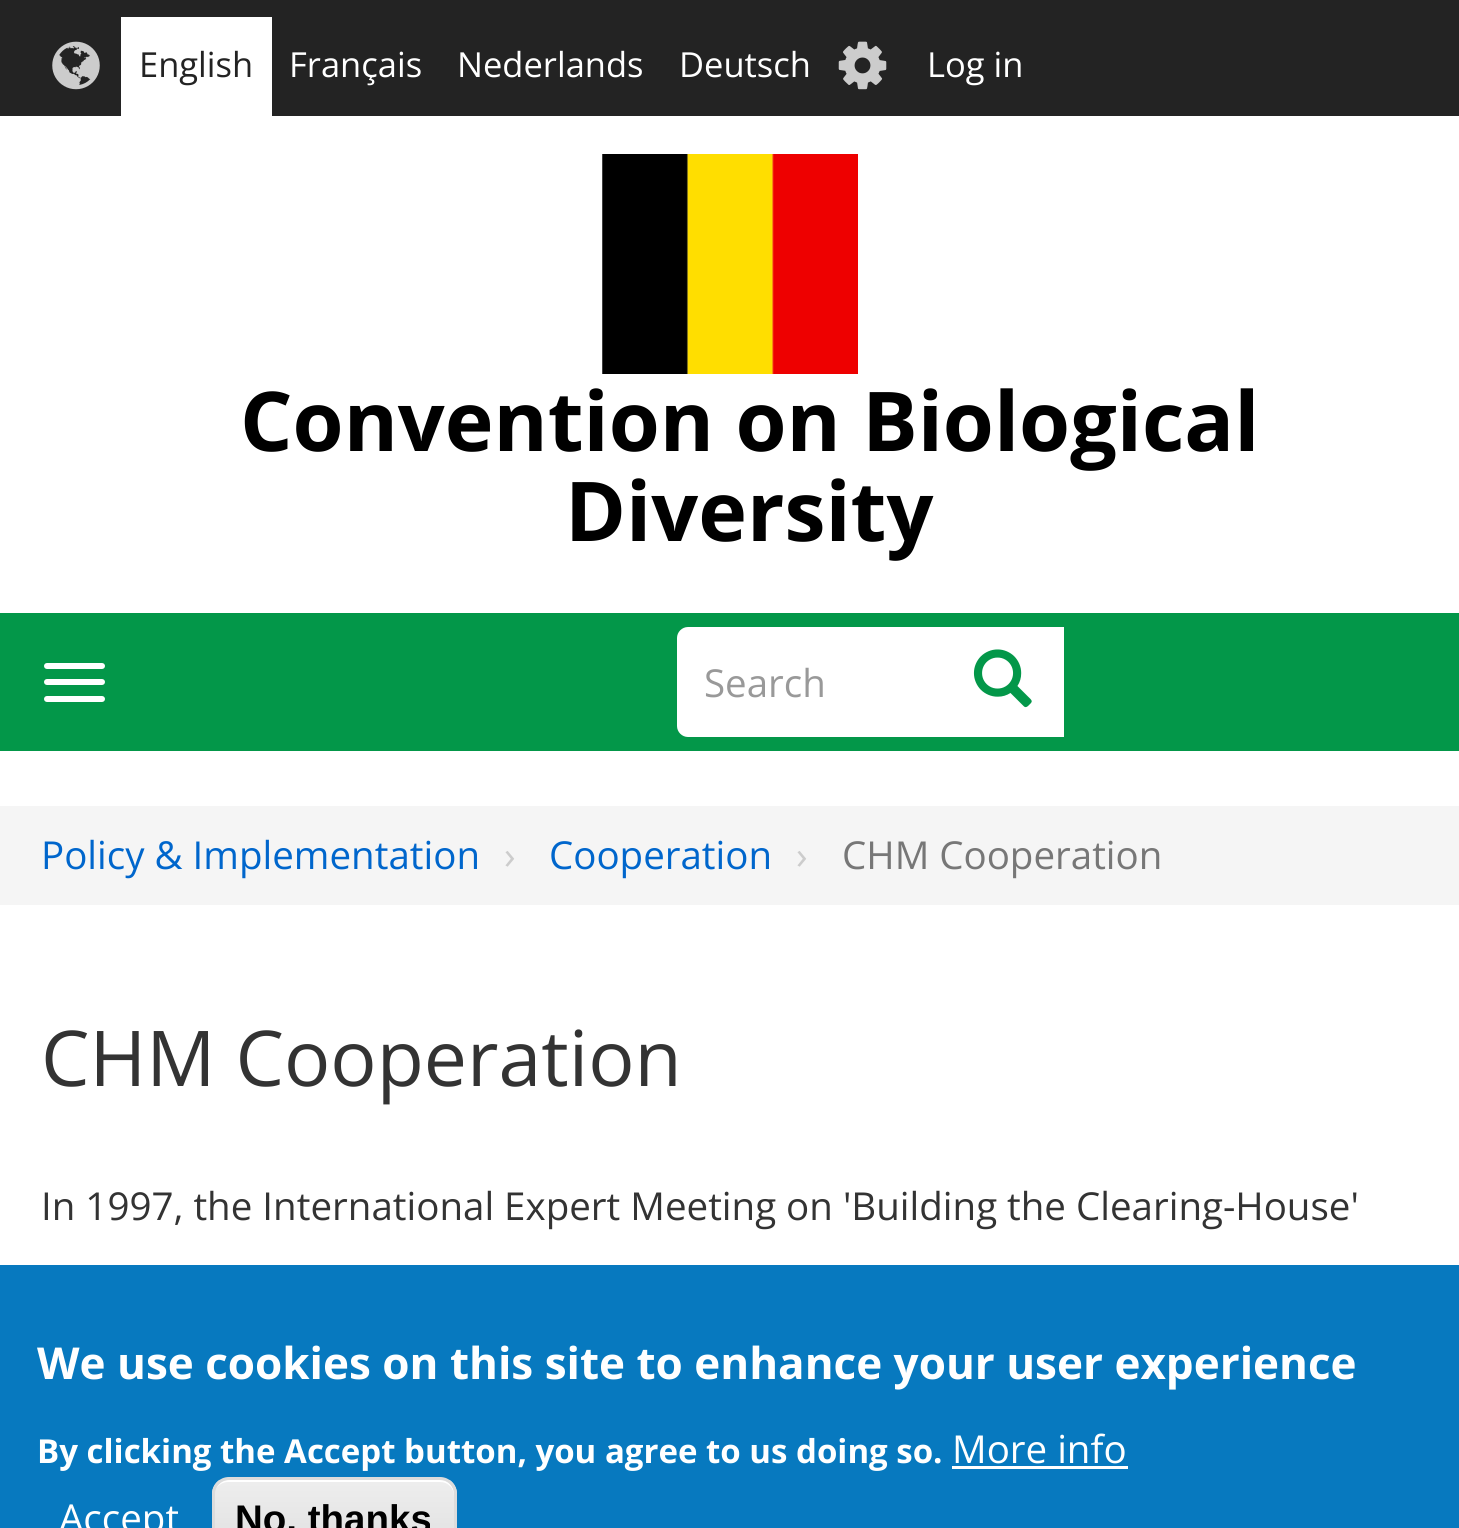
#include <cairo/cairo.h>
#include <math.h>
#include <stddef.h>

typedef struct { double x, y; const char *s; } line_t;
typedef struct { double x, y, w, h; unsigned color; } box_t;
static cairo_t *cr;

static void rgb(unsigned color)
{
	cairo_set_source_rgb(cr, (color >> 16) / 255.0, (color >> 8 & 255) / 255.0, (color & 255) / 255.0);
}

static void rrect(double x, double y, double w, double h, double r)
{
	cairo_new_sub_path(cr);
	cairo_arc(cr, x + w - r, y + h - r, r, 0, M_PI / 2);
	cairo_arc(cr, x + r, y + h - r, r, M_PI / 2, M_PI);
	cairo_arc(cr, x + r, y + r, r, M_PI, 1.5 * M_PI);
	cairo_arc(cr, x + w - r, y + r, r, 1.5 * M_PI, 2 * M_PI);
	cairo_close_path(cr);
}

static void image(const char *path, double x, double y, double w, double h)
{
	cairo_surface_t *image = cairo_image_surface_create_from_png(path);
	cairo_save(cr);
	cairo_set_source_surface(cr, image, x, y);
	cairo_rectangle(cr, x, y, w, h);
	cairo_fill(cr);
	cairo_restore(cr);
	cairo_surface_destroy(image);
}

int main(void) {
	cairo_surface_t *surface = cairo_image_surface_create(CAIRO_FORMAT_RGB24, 1459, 1528);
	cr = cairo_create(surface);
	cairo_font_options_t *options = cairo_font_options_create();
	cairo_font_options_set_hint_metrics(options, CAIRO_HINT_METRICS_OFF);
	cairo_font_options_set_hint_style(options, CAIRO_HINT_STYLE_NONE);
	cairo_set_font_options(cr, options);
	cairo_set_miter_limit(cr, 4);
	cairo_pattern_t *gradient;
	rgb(0xffffff);
	cairo_paint(cr);
	rgb(0x232323);
	cairo_rectangle(cr, 0, 0, 1459, 116);
	cairo_fill(cr);
	image("img/1.png", 52, 41, 48, 49);
	rgb(0xffffff);
	cairo_rectangle(cr, 121, 17, 151, 99);
	cairo_fill(cr);
	image("img/2.png", 838, 41, 49, 49);
	image("img/3.png", 602, 154, 256, 220);
	rgb(0x039749);
	cairo_rectangle(cr, 0, 613, 1459, 138);
	cairo_fill(cr);
	rgb(0xffffff);
	cairo_new_path(cr);
	cairo_move_to(cr, 688, 627);
	cairo_line_to(cr, 1064, 627);
	cairo_line_to(cr, 1064, 737);
	cairo_line_to(cr, 688, 737);
	cairo_curve_to(cr, 682, 737, 677, 732, 677, 726);
	cairo_line_to(cr, 677, 638);
	cairo_curve_to(cr, 677, 632, 682, 627, 688, 627);
	cairo_close_path(cr);
	cairo_fill(cr);
	image("img/4.png", 973, 649, 59, 59);
	rrect(44, 663, 61, 6, 3);
	cairo_fill(cr);
	rrect(44, 679, 61, 6, 3);
	cairo_fill(cr);
	rrect(44, 696, 61, 6, 3);
	cairo_fill(cr);
	{
		static const box_t items[] = {
			{0, 806, 1459, 99, 0xf5f5f5},
			{0, 1265, 1459, 263, 0x0779bf},
			{952, 1466, 176, 3, 0xffffff},
		};
		for (size_t i = 0; i < sizeof items / sizeof *items; i++) {
			rgb(items[i].color);
			cairo_rectangle(cr, items[i].x, items[i].y, items[i].w, items[i].h);
			cairo_fill(cr);
		}
	}
	cairo_save(cr);
	rrect(212, 1477, 245, 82, 17);
	cairo_clip(cr);
	gradient = cairo_pattern_create_linear(334, 1480, 334, 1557);
	cairo_pattern_add_color_stop_rgba(gradient, 0.05, 0.929, 0.929, 0.929, 1);
	cairo_pattern_add_color_stop_rgba(gradient, 1, 0.875, 0.875, 0.875, 1);
	cairo_set_source(cr, gradient);
	cairo_pattern_destroy(gradient);
	cairo_rectangle(cr, 212, 1480, 245, 48);
	cairo_fill(cr);
	cairo_restore(cr);
	cairo_new_path(cr);
	cairo_move_to(cr, 228, 1482);
	cairo_line_to(cr, 440, 1482);
	cairo_curve_to(cr, 448, 1482, 454, 1488, 454, 1496);
	cairo_line_to(cr, 454, 1494);
	cairo_curve_to(cr, 454, 1486, 448, 1480, 440, 1480);
	cairo_line_to(cr, 229, 1480);
	cairo_curve_to(cr, 223, 1480, 218, 1484, 216, 1489);
	cairo_curve_to(cr, 218, 1485, 223, 1482, 228, 1482);
	cairo_close_path(cr);
	cairo_fill(cr);
	rrect(213.5, 1478.5, 242, 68, 15.5);
	rgb(0xdcdcdc);
	cairo_set_line_width(cr, 3);
	cairo_stroke(cr);
	cairo_select_font_face(cr, "Open Sans", CAIRO_FONT_SLANT_NORMAL, CAIRO_FONT_WEIGHT_NORMAL);
	cairo_set_font_size(cr, 34.5);
	rgb(0x232323);
	cairo_move_to(cr, 139, 77);
	cairo_show_text(cr, "English");
	rgb(0xffffff);
	{
		static const line_t items[] = {
			{289, 77, "Français"},
			{457, 77, "Nederlands"},
			{679, 77, "Deutsch"},
			{927, 77, "Log in"},
		};
		for (size_t i = 0; i < sizeof items / sizeof *items; i++) {
			cairo_move_to(cr, items[i].x, items[i].y);
			cairo_show_text(cr, items[i].s);
		}
	}
	cairo_select_font_face(cr, "Open Sans", CAIRO_FONT_SLANT_NORMAL, CAIRO_FONT_WEIGHT_BOLD);
	cairo_set_font_size(cr, 82.5);
	rgb(0x000000);
	cairo_move_to(cr, 240, 451);
	cairo_show_text(cr, "Convention on Biological");
	cairo_move_to(cr, 565, 541);
	cairo_show_text(cr, "Diversity");
	cairo_select_font_face(cr, "Open Sans", CAIRO_FONT_SLANT_NORMAL, CAIRO_FONT_WEIGHT_NORMAL);
	cairo_set_font_size(cr, 38.5);
	rgb(0x999999);
	cairo_move_to(cr, 704, 697);
	cairo_show_text(cr, "Search");
	rgb(0x0066cc);
	cairo_move_to(cr, 41, 869);
	cairo_show_text(cr, "Policy & Implementation");
	rgb(0xcccccc);
	cairo_move_to(cr, 504, 869);
	cairo_show_text(cr, "›");
	rgb(0x0066cc);
	cairo_move_to(cr, 549, 869);
	cairo_show_text(cr, "Cooperation");
	rgb(0xcccccc);
	cairo_move_to(cr, 796, 869);
	cairo_show_text(cr, "›");
	rgb(0x777777);
	cairo_move_to(cr, 842, 869);
	cairo_show_text(cr, "CHM Cooperation");
	cairo_set_font_size(cr, 77);
	rgb(0x333333);
	cairo_move_to(cr, 41, 1086);
	cairo_show_text(cr, "CHM Cooperation");
	cairo_set_font_size(cr, 38.5);
	cairo_move_to(cr, 41, 1220);
	cairo_show_text(cr, "In 1997, the International Expert Meeting on 'Building the Clearing-House'");
	cairo_select_font_face(cr, "Open Sans", CAIRO_FONT_SLANT_NORMAL, CAIRO_FONT_WEIGHT_BOLD);
	cairo_set_font_size(cr, 44);
	rgb(0xffffff);
	cairo_move_to(cr, 37, 1379);
	cairo_show_text(cr, "We use cookies on this site to enhance your user experience");
	cairo_set_font_size(cr, 33);
	cairo_move_to(cr, 37, 1463);
	cairo_show_text(cr, "By clicking the Accept button, you agree to us doing so.");
	cairo_select_font_face(cr, "Open Sans", CAIRO_FONT_SLANT_NORMAL, CAIRO_FONT_WEIGHT_NORMAL);
	cairo_set_font_size(cr, 38.5);
	cairo_move_to(cr, 952, 1463);
	cairo_show_text(cr, "More info");
	cairo_move_to(cr, 59, 1532);
	cairo_show_text(cr, "Accept");
	cairo_select_font_face(cr, "Liberation Sans", CAIRO_FONT_SLANT_NORMAL, CAIRO_FONT_WEIGHT_BOLD);
	rgb(0x000000);
	cairo_move_to(cr, 235, 1532);
	cairo_show_text(cr, "No, thanks");
	cairo_surface_write_to_png(surface, "page.png");
	cairo_font_options_destroy(options);
	cairo_destroy(cr);
	cairo_surface_destroy(surface);
	return 0;
}
